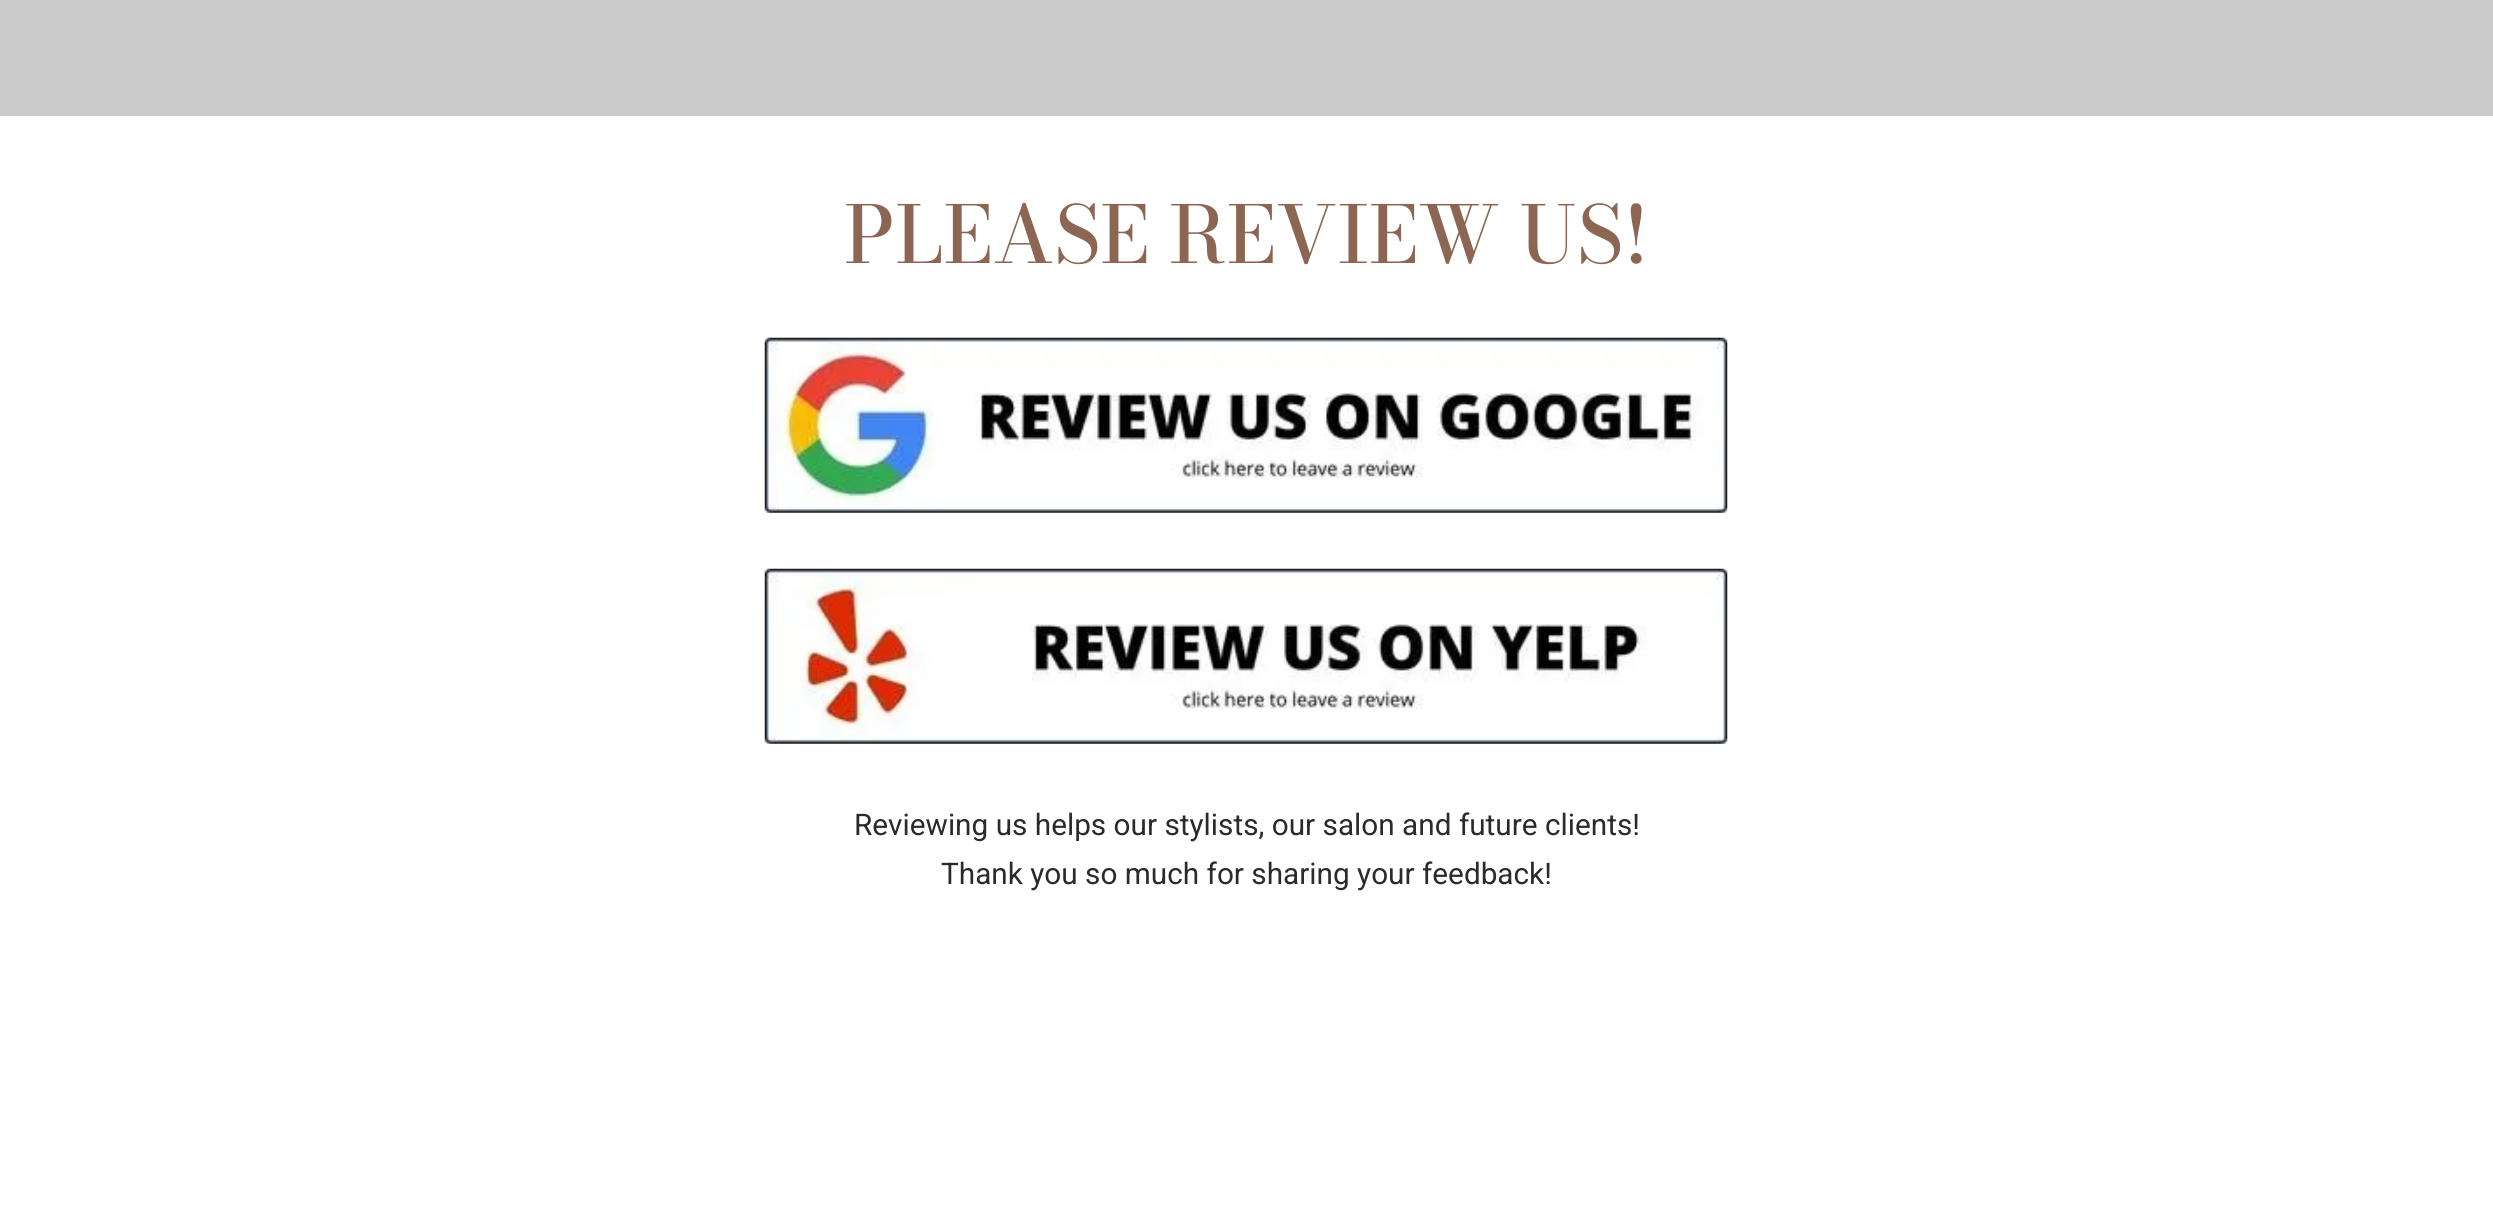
#include <cairo/cairo.h>
#include <math.h>
#include <stddef.h>

static cairo_t *cr;

static void rgb(unsigned color)
{
	cairo_set_source_rgb(cr, (color >> 16) / 255.0, (color >> 8 & 255) / 255.0, (color & 255) / 255.0);
}

static void image(const char *path, double x, double y, double w, double h)
{
	cairo_surface_t *image = cairo_image_surface_create_from_png(path);
	cairo_save(cr);
	cairo_set_source_surface(cr, image, x, y);
	cairo_rectangle(cr, x, y, w, h);
	cairo_fill(cr);
	cairo_restore(cr);
	cairo_surface_destroy(image);
}

int main(void) {
	cairo_surface_t *surface = cairo_image_surface_create(CAIRO_FORMAT_RGB24, 2493, 1209);
	cr = cairo_create(surface);
	cairo_font_options_t *options = cairo_font_options_create();
	cairo_font_options_set_hint_metrics(options, CAIRO_HINT_METRICS_OFF);
	cairo_font_options_set_hint_style(options, CAIRO_HINT_STYLE_NONE);
	cairo_set_font_options(cr, options);
	cairo_set_miter_limit(cr, 4);
	rgb(0xffffff);
	cairo_paint(cr);
	rgb(0xcacaca);
	cairo_rectangle(cr, 0, 0, 2493, 116);
	cairo_fill(cr);
	image("img/1.png", 764, 337, 964, 176);
	image("img/2.png", 764, 568, 964, 176);
	cairo_select_font_face(cr, "Bodoni Moda Medium", CAIRO_FONT_SLANT_NORMAL, CAIRO_FONT_WEIGHT_NORMAL);
	cairo_set_font_size(cr, 78.75);
	rgb(0x8c6653);
	cairo_move_to(cr, 844, 263);
	cairo_show_text(cr, "PLEASE REVIEW US!");
	cairo_select_font_face(cr, "Roboto", CAIRO_FONT_SLANT_NORMAL, CAIRO_FONT_WEIGHT_NORMAL);
	cairo_set_font_size(cr, 29.75);
	rgb(0x2b2b2b);
	cairo_move_to(cr, 854, 835);
	cairo_show_text(cr, "Reviewing us helps our stylists, our salon and future clients!");
	cairo_move_to(cr, 941, 884);
	cairo_show_text(cr, "Thank you so much for sharing your feedback!");
	cairo_surface_write_to_png(surface, "page.png");
	cairo_font_options_destroy(options);
	cairo_destroy(cr);
	cairo_surface_destroy(surface);
	return 0;
}
